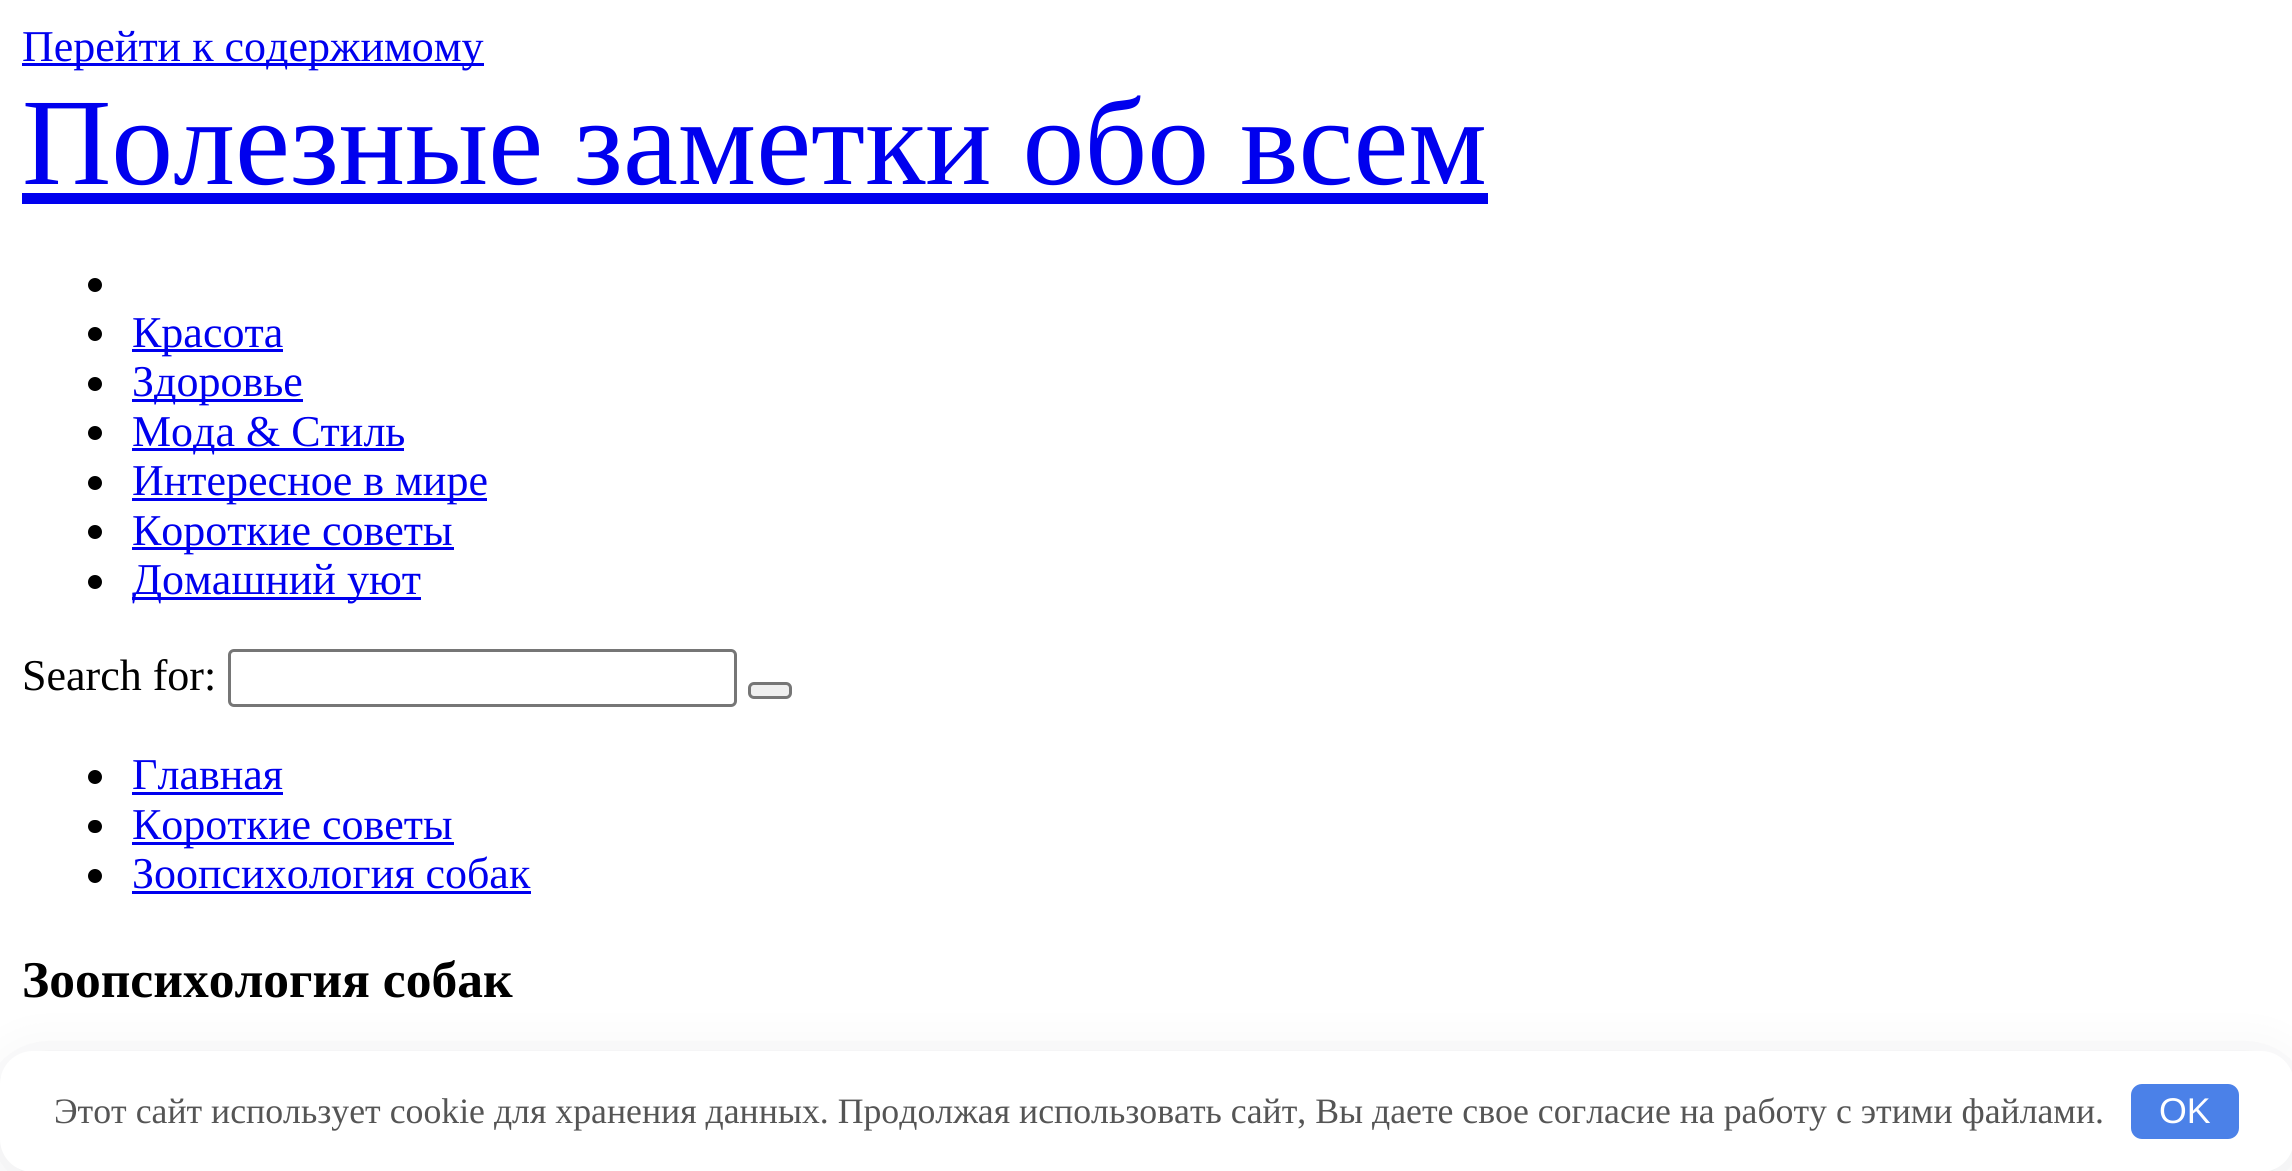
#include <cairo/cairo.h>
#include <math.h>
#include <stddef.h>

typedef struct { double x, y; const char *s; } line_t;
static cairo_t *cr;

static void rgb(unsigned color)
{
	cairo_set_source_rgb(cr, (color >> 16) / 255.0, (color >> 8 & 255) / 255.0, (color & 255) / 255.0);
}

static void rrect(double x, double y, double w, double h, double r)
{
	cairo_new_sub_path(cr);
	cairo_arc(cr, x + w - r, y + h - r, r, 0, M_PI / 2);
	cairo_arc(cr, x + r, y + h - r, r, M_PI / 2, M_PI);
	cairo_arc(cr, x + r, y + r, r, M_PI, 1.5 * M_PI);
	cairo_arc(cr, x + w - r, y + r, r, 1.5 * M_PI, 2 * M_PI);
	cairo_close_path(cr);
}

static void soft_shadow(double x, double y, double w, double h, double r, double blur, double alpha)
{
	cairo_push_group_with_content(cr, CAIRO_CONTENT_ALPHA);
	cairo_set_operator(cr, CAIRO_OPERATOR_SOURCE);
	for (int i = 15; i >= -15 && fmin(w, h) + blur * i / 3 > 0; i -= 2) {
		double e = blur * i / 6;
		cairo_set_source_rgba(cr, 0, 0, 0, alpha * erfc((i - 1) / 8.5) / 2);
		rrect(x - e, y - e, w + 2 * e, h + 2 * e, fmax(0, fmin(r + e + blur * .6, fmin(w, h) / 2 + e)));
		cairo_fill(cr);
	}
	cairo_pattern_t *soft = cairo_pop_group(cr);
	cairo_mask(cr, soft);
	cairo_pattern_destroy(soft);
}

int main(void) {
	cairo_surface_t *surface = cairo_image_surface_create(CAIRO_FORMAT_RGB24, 2292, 1171);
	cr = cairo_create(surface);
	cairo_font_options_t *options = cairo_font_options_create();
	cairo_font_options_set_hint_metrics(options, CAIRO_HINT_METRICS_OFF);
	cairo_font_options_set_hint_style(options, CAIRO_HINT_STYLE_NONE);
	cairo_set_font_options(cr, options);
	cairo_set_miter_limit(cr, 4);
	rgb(0xffffff);
	cairo_paint(cr);
	rgb(0x0000ee);
	cairo_rectangle(cr, 22, 63, 462, 3);
	cairo_fill(cr);
	cairo_rectangle(cr, 22, 193, 1466, 11);
	cairo_fill(cr);
	rgb(0x000000);
	cairo_arc(cr, 95, 285, 7, 0, 2 * M_PI);
	cairo_fill(cr);
	cairo_arc(cr, 95, 334, 7, 0, 2 * M_PI);
	cairo_fill(cr);
	rgb(0x0000ee);
	cairo_rectangle(cr, 132, 349, 151, 3);
	cairo_fill(cr);
	rgb(0x000000);
	cairo_arc(cr, 95, 384, 7, 0, 2 * M_PI);
	cairo_fill(cr);
	rgb(0x0000ee);
	cairo_rectangle(cr, 132, 399, 171, 3);
	cairo_fill(cr);
	rgb(0x000000);
	cairo_arc(cr, 95, 433, 7, 0, 2 * M_PI);
	cairo_fill(cr);
	rgb(0x0000ee);
	cairo_rectangle(cr, 132, 448, 272, 3);
	cairo_fill(cr);
	rgb(0x000000);
	cairo_arc(cr, 95, 483, 7, 0, 2 * M_PI);
	cairo_fill(cr);
	rgb(0x0000ee);
	cairo_rectangle(cr, 132, 498, 355, 3);
	cairo_fill(cr);
	rgb(0x000000);
	cairo_arc(cr, 95, 532, 7, 0, 2 * M_PI);
	cairo_fill(cr);
	rgb(0x0000ee);
	cairo_rectangle(cr, 132, 547, 322, 3);
	cairo_fill(cr);
	rgb(0x000000);
	cairo_arc(cr, 95, 582, 7, 0, 2 * M_PI);
	cairo_fill(cr);
	rgb(0x0000ee);
	cairo_rectangle(cr, 132, 597, 289, 3);
	cairo_fill(cr);
	rrect(229.5, 650.5, 506, 55, 4.5);
	rgb(0x767676);
	cairo_set_line_width(cr, 3);
	cairo_stroke(cr);
	rgb(0xefefef);
	rrect(749.5, 683.5, 41, 14, 4.5);
	cairo_fill_preserve(cr);
	rgb(0x767676);
	cairo_stroke(cr);
	rgb(0x000000);
	cairo_arc(cr, 95, 777, 7, 0, 2 * M_PI);
	cairo_fill(cr);
	rgb(0x0000ee);
	cairo_rectangle(cr, 132, 792, 151, 3);
	cairo_fill(cr);
	rgb(0x000000);
	rrect(88, 820, 14, 13, 6.5);
	cairo_fill(cr);
	rgb(0x0000ee);
	cairo_rectangle(cr, 132, 842, 322, 3);
	cairo_fill(cr);
	rgb(0x000000);
	cairo_arc(cr, 95, 876, 7, 0, 2 * M_PI);
	cairo_fill(cr);
	rgb(0x0000ee);
	cairo_rectangle(cr, 132, 891, 399, 3);
	cairo_fill(cr);
	rgb(0x292c38);
	soft_shadow(14, 1073, 2266, 93, 19, 27.5, 0.2);
	rgb(0xffffff);
	rrect(0, 1051, 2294, 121, 33);
	cairo_fill(cr);
	rgb(0x4b81e8);
	rrect(2131, 1084, 108, 55, 11);
	cairo_fill(cr);
	cairo_select_font_face(cr, "Liberation Serif", CAIRO_FONT_SLANT_NORMAL, CAIRO_FONT_WEIGHT_NORMAL);
	cairo_set_font_size(cr, 44);
	rgb(0x0000ee);
	cairo_move_to(cr, 22, 61);
	cairo_show_text(cr, "Перейти к содержимому");
	cairo_set_font_size(cr, 123.75);
	cairo_move_to(cr, 22, 184);
	cairo_show_text(cr, "Полезные заметки обо всем");
	cairo_set_font_size(cr, 44);
	{
		static const line_t items[] = {
			{132, 347, "Красота"},
			{132, 396, "Здоровье"},
			{132, 446, "Мода & Стиль"},
			{132, 495, "Интересное в мире"},
			{132, 545, "Короткие советы"},
			{132, 594, "Домашний уют"},
		};
		for (size_t i = 0; i < sizeof items / sizeof *items; i++) {
			cairo_move_to(cr, items[i].x, items[i].y);
			cairo_show_text(cr, items[i].s);
		}
	}
	rgb(0x000000);
	cairo_move_to(cr, 22, 690);
	cairo_show_text(cr, "Search for:");
	rgb(0x0000ee);
	{
		static const line_t items[] = {
			{132, 789, "Главная"},
			{132, 839, "Короткие советы"},
			{132, 888, "Зоопсихология собак"},
		};
		for (size_t i = 0; i < sizeof items / sizeof *items; i++) {
			cairo_move_to(cr, items[i].x, items[i].y);
			cairo_show_text(cr, items[i].s);
		}
	}
	cairo_select_font_face(cr, "Liberation Serif", CAIRO_FONT_SLANT_NORMAL, CAIRO_FONT_WEIGHT_BOLD);
	cairo_set_font_size(cr, 51.5);
	rgb(0x000000);
	cairo_move_to(cr, 22, 997);
	cairo_show_text(cr, "Зоопсихология собак");
	cairo_select_font_face(cr, "Liberation Serif", CAIRO_FONT_SLANT_NORMAL, CAIRO_FONT_WEIGHT_NORMAL);
	cairo_set_font_size(cr, 35.75);
	rgb(0x555555);
	cairo_move_to(cr, 54, 1123);
	cairo_show_text(cr, "Этот сайт использует cookie для хранения данных. Продолжая использовать сайт, Вы даете свое согласие на работу с этими файлами.");
	cairo_select_font_face(cr, "Liberation Sans", CAIRO_FONT_SLANT_NORMAL, CAIRO_FONT_WEIGHT_NORMAL);
	rgb(0xffffff);
	cairo_move_to(cr, 2159, 1123);
	cairo_show_text(cr, "OK");
	cairo_surface_write_to_png(surface, "page.png");
	cairo_font_options_destroy(options);
	cairo_destroy(cr);
	cairo_surface_destroy(surface);
	return 0;
}
